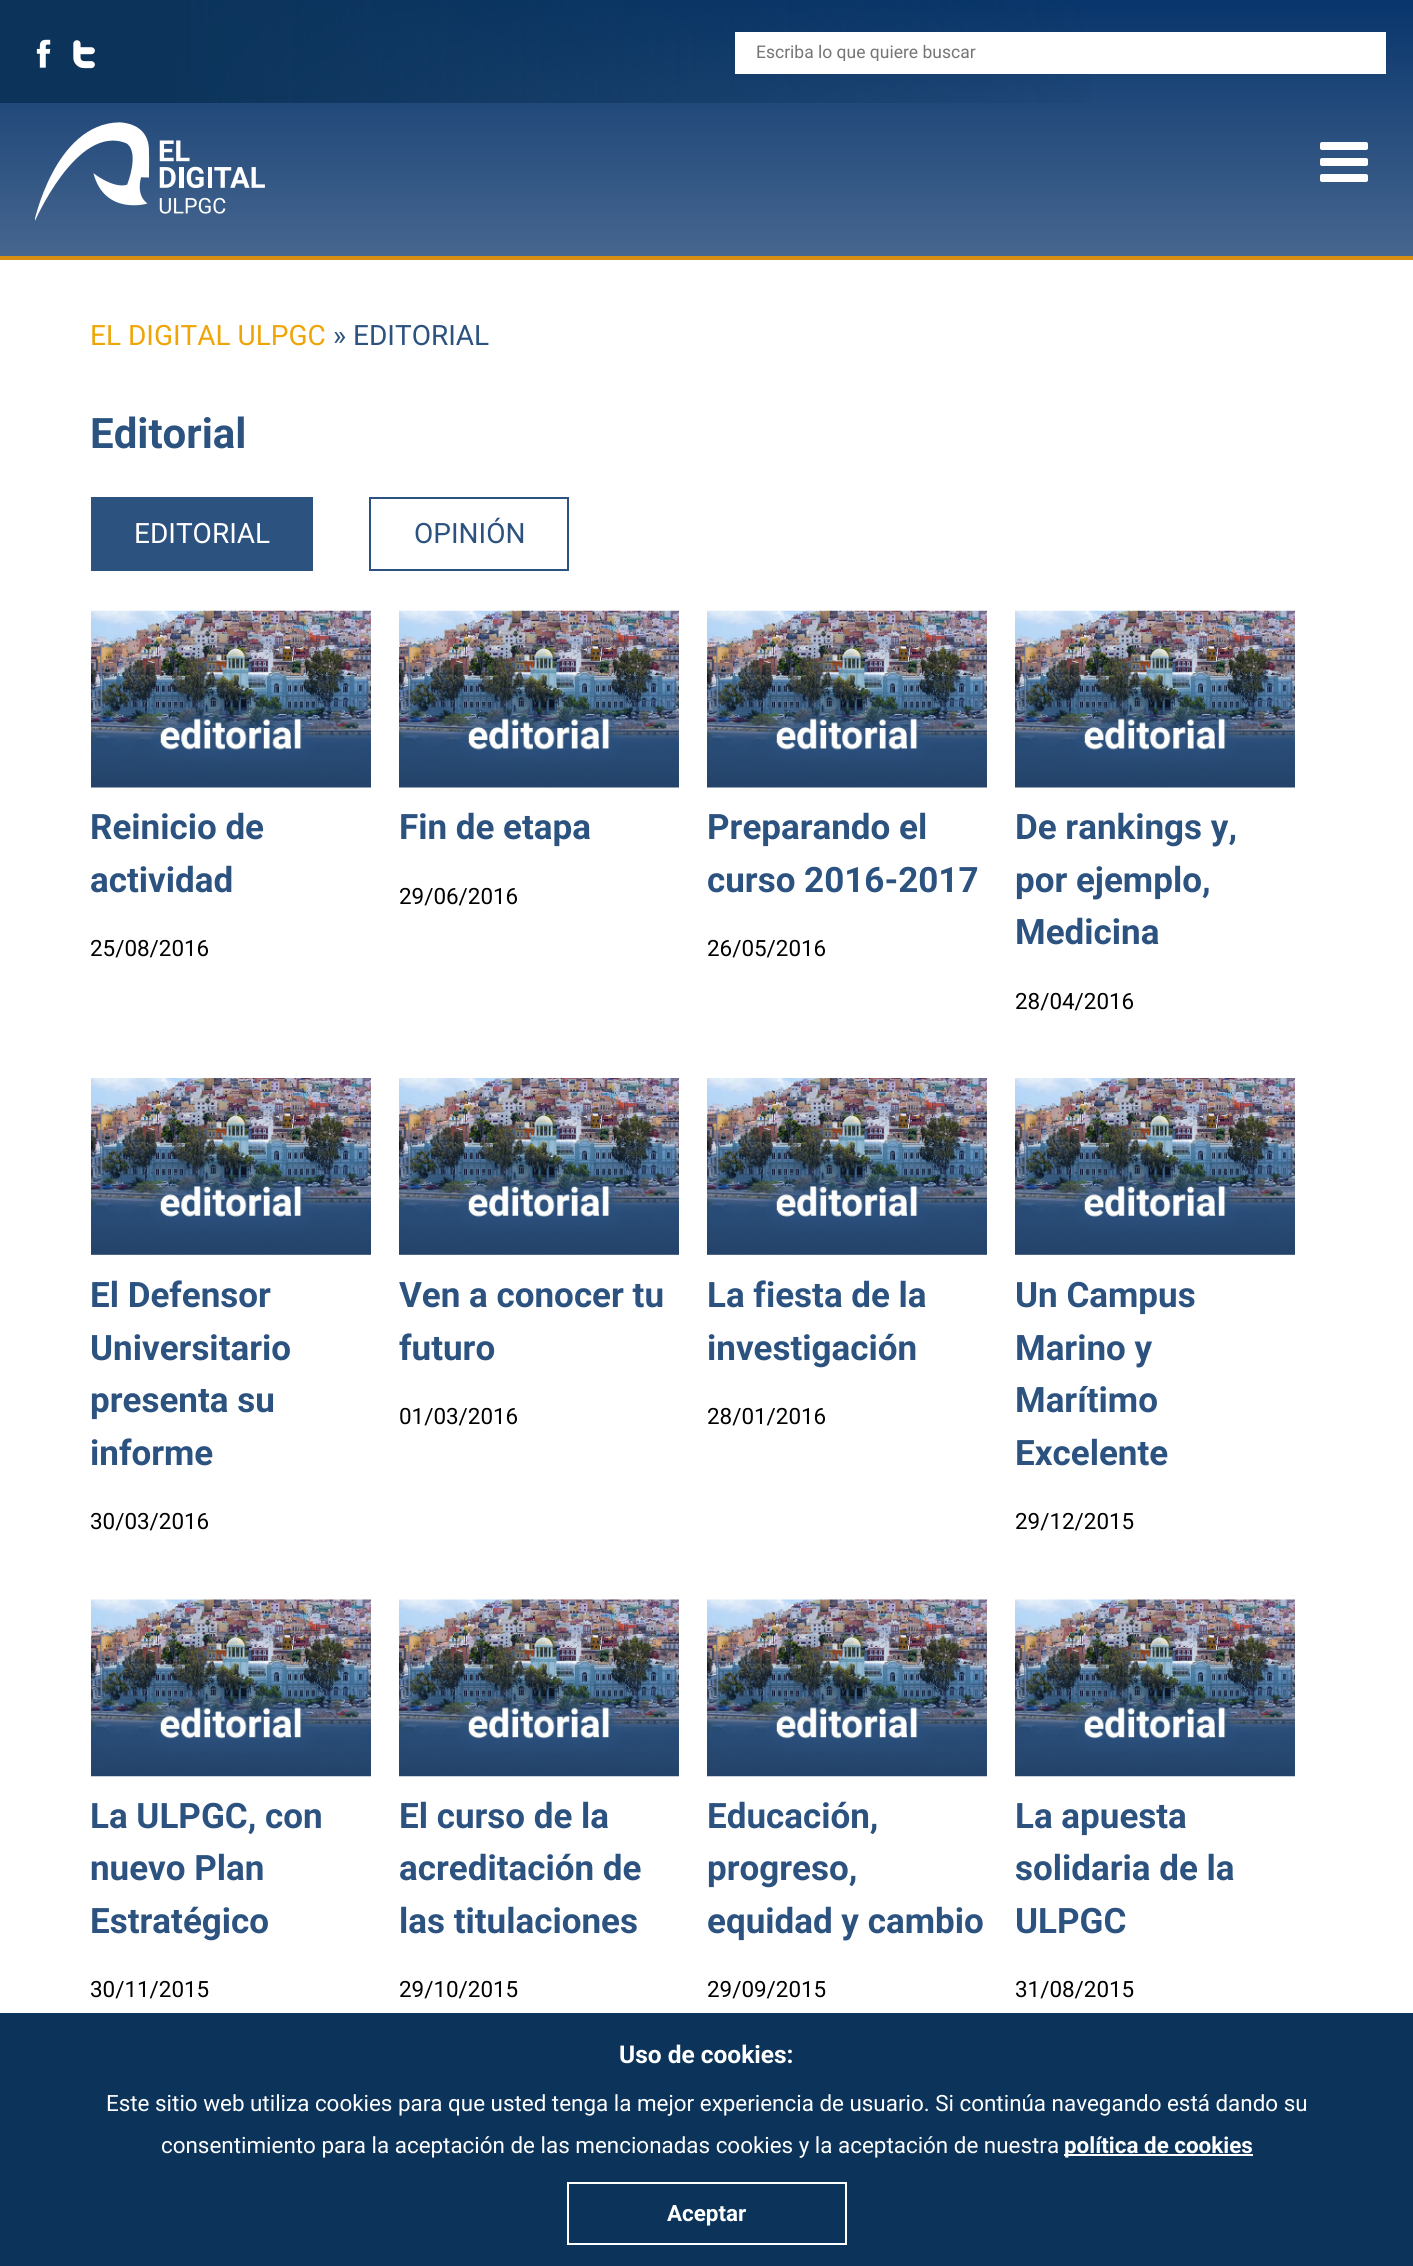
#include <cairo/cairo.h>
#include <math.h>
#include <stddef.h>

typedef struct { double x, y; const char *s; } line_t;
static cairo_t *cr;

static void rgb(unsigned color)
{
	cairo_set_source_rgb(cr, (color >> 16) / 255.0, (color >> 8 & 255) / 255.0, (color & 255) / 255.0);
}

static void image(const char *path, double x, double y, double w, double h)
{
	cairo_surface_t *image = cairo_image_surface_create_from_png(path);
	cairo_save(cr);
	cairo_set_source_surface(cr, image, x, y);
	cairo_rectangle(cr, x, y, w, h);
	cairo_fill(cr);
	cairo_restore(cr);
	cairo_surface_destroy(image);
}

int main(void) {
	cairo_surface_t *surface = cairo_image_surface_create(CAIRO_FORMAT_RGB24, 1413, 2266);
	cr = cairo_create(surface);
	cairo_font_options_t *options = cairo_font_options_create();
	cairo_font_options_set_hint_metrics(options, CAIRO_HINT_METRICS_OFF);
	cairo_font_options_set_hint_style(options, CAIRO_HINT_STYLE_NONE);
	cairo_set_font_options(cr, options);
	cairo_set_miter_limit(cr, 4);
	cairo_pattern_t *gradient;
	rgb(0xffffff);
	cairo_paint(cr);
	gradient = cairo_pattern_create_linear(707, 256, 707, 0);
	cairo_pattern_add_color_stop_rgba(gradient, 0, 0.275, 0.4, 0.561, 1);
	cairo_pattern_add_color_stop_rgba(gradient, 1, 0.031, 0.208, 0.424, 1);
	cairo_set_source(cr, gradient);
	cairo_pattern_destroy(gradient);
	cairo_rectangle(cr, 0, 0, 1413, 256);
	cairo_fill(cr);
	rgb(0xd68f12);
	cairo_rectangle(cr, 0, 256, 1413, 4);
	cairo_fill(cr);
	gradient = cairo_pattern_create_linear(0, 52, 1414, 52);
	cairo_pattern_add_color_stop_rgba(gradient, 0.12, 0.047, 0.204, 0.357, 1);
	cairo_pattern_add_color_stop_rgba(gradient, 0.82, 0.047, 0.204, 0.357, 0);
	cairo_set_source(cr, gradient);
	cairo_pattern_destroy(gradient);
	cairo_rectangle(cr, 0, 0, 1092, 103);
	cairo_fill(cr);
	image("img/1.png", 36, 39, 15, 29);
	image("img/2.png", 73, 40, 22, 29);
	rgb(0xffffff);
	cairo_rectangle(cr, 735, 32, 651, 42);
	cairo_fill(cr);
	image("img/3.png", 35, 122, 230, 99);
	image("img/4.png", 1320, 142, 48, 40);
	rgb(0x2c5280);
	cairo_rectangle(cr, 91, 497, 222, 74);
	cairo_fill(cr);
	cairo_rectangle(cr, 370, 498, 198, 72);
	cairo_stroke(cr);
	image("img/5.png", 91, 610, 280, 178);
	image("img/5.png", 399, 610, 280, 178);
	image("img/5.png", 707, 610, 280, 178);
	image("img/5.png", 1015, 610, 280, 178);
	image("img/6.png", 91, 1078, 280, 177);
	image("img/6.png", 399, 1078, 280, 177);
	image("img/6.png", 707, 1078, 280, 177);
	image("img/6.png", 1015, 1078, 280, 177);
	image("img/7.png", 91, 1599, 280, 178);
	image("img/7.png", 399, 1599, 280, 178);
	image("img/7.png", 707, 1599, 280, 178);
	image("img/7.png", 1015, 1599, 280, 178);
	rgb(0x0c345b);
	cairo_rectangle(cr, 0, 2013, 1413, 253);
	cairo_fill(cr);
	rgb(0xffffff);
	cairo_rectangle(cr, 1064, 2154, 189, 2);
	cairo_fill(cr);
	cairo_rectangle(cr, 568, 2183, 278, 61);
	cairo_stroke(cr);
	cairo_save(cr);
	cairo_rectangle(cr, 756, 42, 602, 19);
	cairo_clip(cr);
	cairo_select_font_face(cr, "Roboto", CAIRO_FONT_SLANT_NORMAL, CAIRO_FONT_WEIGHT_NORMAL);
	cairo_set_font_size(cr, 17.5);
	rgb(0x757575);
	cairo_move_to(cr, 756, 58);
	cairo_show_text(cr, "Escriba lo que quiere buscar");
	cairo_restore(cr);
	cairo_select_font_face(cr, "Roboto", CAIRO_FONT_SLANT_NORMAL, CAIRO_FONT_WEIGHT_NORMAL);
	cairo_set_font_size(cr, 28);
	rgb(0xefa507);
	cairo_move_to(cr, 90, 345);
	cairo_show_text(cr, "EL DIGITAL ULPGC");
	rgb(0x2c5280);
	cairo_move_to(cr, 333, 345);
	cairo_show_text(cr, "» EDITORIAL");
	cairo_select_font_face(cr, "Roboto", CAIRO_FONT_SLANT_NORMAL, CAIRO_FONT_WEIGHT_BOLD);
	cairo_set_font_size(cr, 42);
	cairo_move_to(cr, 90, 448);
	cairo_show_text(cr, "Editorial");
	cairo_select_font_face(cr, "Roboto", CAIRO_FONT_SLANT_NORMAL, CAIRO_FONT_WEIGHT_NORMAL);
	cairo_set_font_size(cr, 28);
	rgb(0xffffff);
	cairo_move_to(cr, 134, 543);
	cairo_show_text(cr, "EDITORIAL");
	rgb(0x2c5280);
	cairo_move_to(cr, 414, 543);
	cairo_show_text(cr, "OPINIÓN");
	cairo_select_font_face(cr, "Roboto", CAIRO_FONT_SLANT_NORMAL, CAIRO_FONT_WEIGHT_BOLD);
	cairo_set_font_size(cr, 35);
	cairo_move_to(cr, 90, 839);
	cairo_show_text(cr, "Reinicio de");
	cairo_move_to(cr, 90, 892);
	cairo_show_text(cr, "actividad");
	cairo_select_font_face(cr, "Roboto", CAIRO_FONT_SLANT_NORMAL, CAIRO_FONT_WEIGHT_NORMAL);
	cairo_set_font_size(cr, 22.4);
	rgb(0x000000);
	cairo_move_to(cr, 90, 956);
	cairo_show_text(cr, "25/08/2016");
	cairo_select_font_face(cr, "Roboto", CAIRO_FONT_SLANT_NORMAL, CAIRO_FONT_WEIGHT_BOLD);
	cairo_set_font_size(cr, 35);
	rgb(0x2c5280);
	cairo_move_to(cr, 399, 839);
	cairo_show_text(cr, "Fin de etapa");
	cairo_select_font_face(cr, "Roboto", CAIRO_FONT_SLANT_NORMAL, CAIRO_FONT_WEIGHT_NORMAL);
	cairo_set_font_size(cr, 22.4);
	rgb(0x000000);
	cairo_move_to(cr, 399, 904);
	cairo_show_text(cr, "29/06/2016");
	cairo_select_font_face(cr, "Roboto", CAIRO_FONT_SLANT_NORMAL, CAIRO_FONT_WEIGHT_BOLD);
	cairo_set_font_size(cr, 35);
	rgb(0x2c5280);
	cairo_move_to(cr, 707, 839);
	cairo_show_text(cr, "Preparando el");
	cairo_move_to(cr, 707, 892);
	cairo_show_text(cr, "curso 2016-2017");
	cairo_select_font_face(cr, "Roboto", CAIRO_FONT_SLANT_NORMAL, CAIRO_FONT_WEIGHT_NORMAL);
	cairo_set_font_size(cr, 22.4);
	rgb(0x000000);
	cairo_move_to(cr, 707, 956);
	cairo_show_text(cr, "26/05/2016");
	cairo_select_font_face(cr, "Roboto", CAIRO_FONT_SLANT_NORMAL, CAIRO_FONT_WEIGHT_BOLD);
	cairo_set_font_size(cr, 35);
	rgb(0x2c5280);
	{
		static const line_t items[] = {
			{1015, 839, "De rankings y,"},
			{1015, 892, "por ejemplo,"},
			{1015, 944, "Medicina"},
		};
		for (size_t i = 0; i < sizeof items / sizeof *items; i++) {
			cairo_move_to(cr, items[i].x, items[i].y);
			cairo_show_text(cr, items[i].s);
		}
	}
	cairo_select_font_face(cr, "Roboto", CAIRO_FONT_SLANT_NORMAL, CAIRO_FONT_WEIGHT_NORMAL);
	cairo_set_font_size(cr, 22.4);
	rgb(0x000000);
	cairo_move_to(cr, 1015, 1009);
	cairo_show_text(cr, "28/04/2016");
	cairo_select_font_face(cr, "Roboto", CAIRO_FONT_SLANT_NORMAL, CAIRO_FONT_WEIGHT_BOLD);
	cairo_set_font_size(cr, 35);
	rgb(0x2c5280);
	{
		static const line_t items[] = {
			{90, 1307, "El Defensor"},
			{90, 1360, "Universitario"},
			{90, 1412, "presenta su"},
			{90, 1465, "informe"},
		};
		for (size_t i = 0; i < sizeof items / sizeof *items; i++) {
			cairo_move_to(cr, items[i].x, items[i].y);
			cairo_show_text(cr, items[i].s);
		}
	}
	cairo_select_font_face(cr, "Roboto", CAIRO_FONT_SLANT_NORMAL, CAIRO_FONT_WEIGHT_NORMAL);
	cairo_set_font_size(cr, 22.4);
	rgb(0x000000);
	cairo_move_to(cr, 90, 1529);
	cairo_show_text(cr, "30/03/2016");
	cairo_select_font_face(cr, "Roboto", CAIRO_FONT_SLANT_NORMAL, CAIRO_FONT_WEIGHT_BOLD);
	cairo_set_font_size(cr, 35);
	rgb(0x2c5280);
	cairo_move_to(cr, 399, 1307);
	cairo_show_text(cr, "Ven a conocer tu");
	cairo_move_to(cr, 399, 1360);
	cairo_show_text(cr, "futuro");
	cairo_select_font_face(cr, "Roboto", CAIRO_FONT_SLANT_NORMAL, CAIRO_FONT_WEIGHT_NORMAL);
	cairo_set_font_size(cr, 22.4);
	rgb(0x000000);
	cairo_move_to(cr, 399, 1424);
	cairo_show_text(cr, "01/03/2016");
	cairo_select_font_face(cr, "Roboto", CAIRO_FONT_SLANT_NORMAL, CAIRO_FONT_WEIGHT_BOLD);
	cairo_set_font_size(cr, 35);
	rgb(0x2c5280);
	cairo_move_to(cr, 707, 1307);
	cairo_show_text(cr, "La fiesta de la");
	cairo_move_to(cr, 707, 1360);
	cairo_show_text(cr, "investigación");
	cairo_select_font_face(cr, "Roboto", CAIRO_FONT_SLANT_NORMAL, CAIRO_FONT_WEIGHT_NORMAL);
	cairo_set_font_size(cr, 22.4);
	rgb(0x000000);
	cairo_move_to(cr, 707, 1424);
	cairo_show_text(cr, "28/01/2016");
	cairo_select_font_face(cr, "Roboto", CAIRO_FONT_SLANT_NORMAL, CAIRO_FONT_WEIGHT_BOLD);
	cairo_set_font_size(cr, 35);
	rgb(0x2c5280);
	{
		static const line_t items[] = {
			{1015, 1307, "Un Campus"},
			{1015, 1360, "Marino y"},
			{1015, 1412, "Marítimo"},
			{1015, 1465, "Excelente"},
		};
		for (size_t i = 0; i < sizeof items / sizeof *items; i++) {
			cairo_move_to(cr, items[i].x, items[i].y);
			cairo_show_text(cr, items[i].s);
		}
	}
	cairo_select_font_face(cr, "Roboto", CAIRO_FONT_SLANT_NORMAL, CAIRO_FONT_WEIGHT_NORMAL);
	cairo_set_font_size(cr, 22.4);
	rgb(0x000000);
	cairo_move_to(cr, 1015, 1529);
	cairo_show_text(cr, "29/12/2015");
	cairo_select_font_face(cr, "Roboto", CAIRO_FONT_SLANT_NORMAL, CAIRO_FONT_WEIGHT_BOLD);
	cairo_set_font_size(cr, 35);
	rgb(0x2c5280);
	{
		static const line_t items[] = {
			{90, 1828, "La ULPGC, con"},
			{90, 1880, "nuevo Plan"},
			{90, 1933, "Estratégico"},
		};
		for (size_t i = 0; i < sizeof items / sizeof *items; i++) {
			cairo_move_to(cr, items[i].x, items[i].y);
			cairo_show_text(cr, items[i].s);
		}
	}
	cairo_select_font_face(cr, "Roboto", CAIRO_FONT_SLANT_NORMAL, CAIRO_FONT_WEIGHT_NORMAL);
	cairo_set_font_size(cr, 22.4);
	rgb(0x000000);
	cairo_move_to(cr, 90, 1997);
	cairo_show_text(cr, "30/11/2015");
	cairo_select_font_face(cr, "Roboto", CAIRO_FONT_SLANT_NORMAL, CAIRO_FONT_WEIGHT_BOLD);
	cairo_set_font_size(cr, 35);
	rgb(0x2c5280);
	{
		static const line_t items[] = {
			{399, 1828, "El curso de la"},
			{399, 1880, "acreditación de"},
			{399, 1933, "las titulaciones"},
		};
		for (size_t i = 0; i < sizeof items / sizeof *items; i++) {
			cairo_move_to(cr, items[i].x, items[i].y);
			cairo_show_text(cr, items[i].s);
		}
	}
	cairo_select_font_face(cr, "Roboto", CAIRO_FONT_SLANT_NORMAL, CAIRO_FONT_WEIGHT_NORMAL);
	cairo_set_font_size(cr, 22.4);
	rgb(0x000000);
	cairo_move_to(cr, 399, 1997);
	cairo_show_text(cr, "29/10/2015");
	cairo_select_font_face(cr, "Roboto", CAIRO_FONT_SLANT_NORMAL, CAIRO_FONT_WEIGHT_BOLD);
	cairo_set_font_size(cr, 35);
	rgb(0x2c5280);
	{
		static const line_t items[] = {
			{707, 1828, "Educación,"},
			{707, 1880, "progreso,"},
			{707, 1933, "equidad y cambio"},
		};
		for (size_t i = 0; i < sizeof items / sizeof *items; i++) {
			cairo_move_to(cr, items[i].x, items[i].y);
			cairo_show_text(cr, items[i].s);
		}
	}
	cairo_select_font_face(cr, "Roboto", CAIRO_FONT_SLANT_NORMAL, CAIRO_FONT_WEIGHT_NORMAL);
	cairo_set_font_size(cr, 22.4);
	rgb(0x000000);
	cairo_move_to(cr, 707, 1997);
	cairo_show_text(cr, "29/09/2015");
	cairo_select_font_face(cr, "Roboto", CAIRO_FONT_SLANT_NORMAL, CAIRO_FONT_WEIGHT_BOLD);
	cairo_set_font_size(cr, 35);
	rgb(0x2c5280);
	{
		static const line_t items[] = {
			{1015, 1828, "La apuesta"},
			{1015, 1880, "solidaria de la"},
			{1015, 1933, "ULPGC"},
		};
		for (size_t i = 0; i < sizeof items / sizeof *items; i++) {
			cairo_move_to(cr, items[i].x, items[i].y);
			cairo_show_text(cr, items[i].s);
		}
	}
	cairo_select_font_face(cr, "Roboto", CAIRO_FONT_SLANT_NORMAL, CAIRO_FONT_WEIGHT_NORMAL);
	cairo_set_font_size(cr, 22.4);
	rgb(0x000000);
	cairo_move_to(cr, 1015, 1997);
	cairo_show_text(cr, "31/08/2015");
	cairo_select_font_face(cr, "Roboto", CAIRO_FONT_SLANT_NORMAL, CAIRO_FONT_WEIGHT_BOLD);
	cairo_set_font_size(cr, 24.5);
	rgb(0xffffff);
	cairo_move_to(cr, 619, 2063);
	cairo_show_text(cr, "Uso de cookies:");
	cairo_select_font_face(cr, "Roboto", CAIRO_FONT_SLANT_NORMAL, CAIRO_FONT_WEIGHT_NORMAL);
	cairo_set_font_size(cr, 22.4);
	cairo_move_to(cr, 106, 2111);
	cairo_show_text(cr, "Este sitio web utiliza cookies para que usted tenga la mejor experiencia de usuario. Si continúa navegando está dando su");
	cairo_move_to(cr, 161, 2153);
	cairo_show_text(cr, "consentimiento para la aceptación de las mencionadas cookies y la aceptación de nuestra");
	cairo_select_font_face(cr, "Roboto", CAIRO_FONT_SLANT_NORMAL, CAIRO_FONT_WEIGHT_BOLD);
	cairo_move_to(cr, 1064, 2153);
	cairo_show_text(cr, "política de cookies");
	cairo_move_to(cr, 667, 2221);
	cairo_show_text(cr, "Aceptar");
	cairo_surface_write_to_png(surface, "page.png");
	cairo_font_options_destroy(options);
	cairo_destroy(cr);
	cairo_surface_destroy(surface);
	return 0;
}
